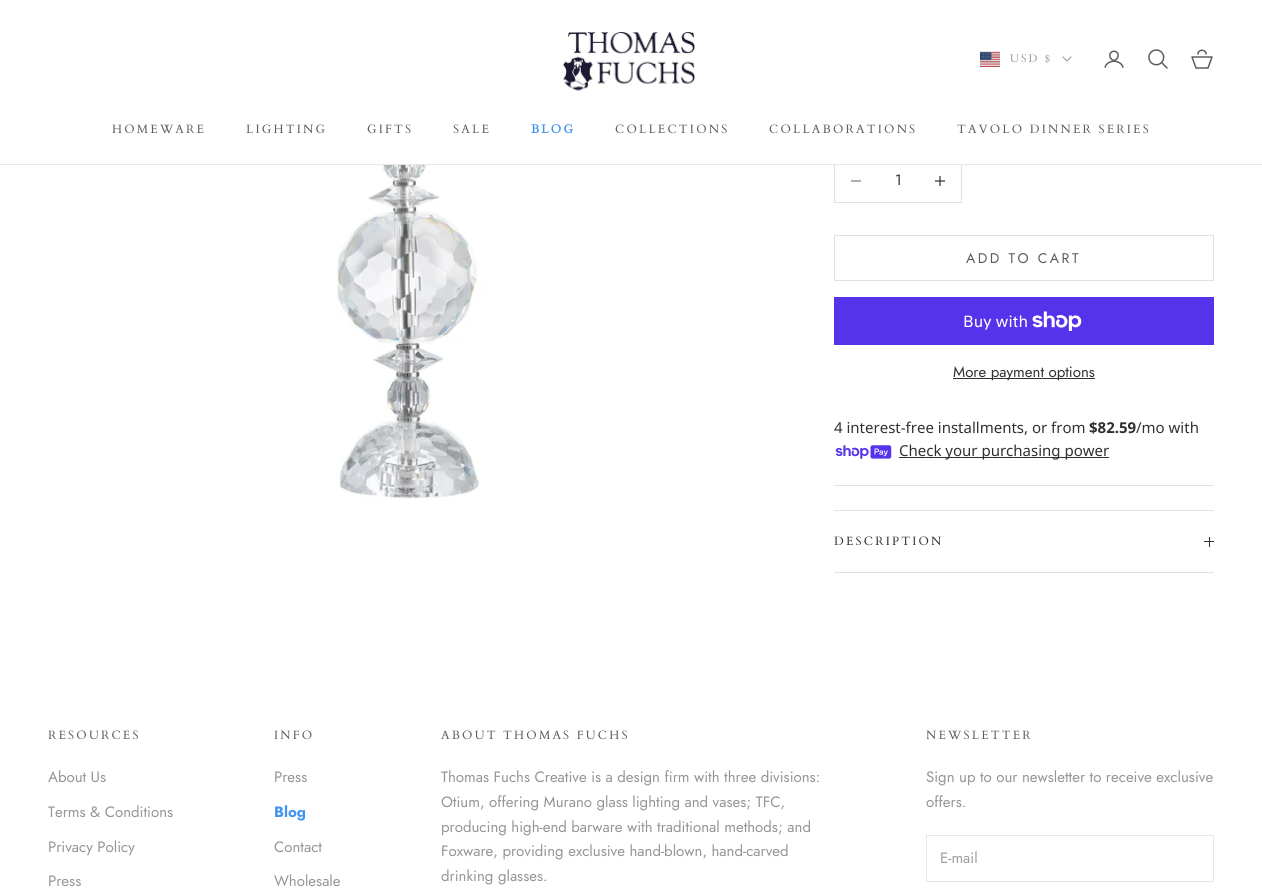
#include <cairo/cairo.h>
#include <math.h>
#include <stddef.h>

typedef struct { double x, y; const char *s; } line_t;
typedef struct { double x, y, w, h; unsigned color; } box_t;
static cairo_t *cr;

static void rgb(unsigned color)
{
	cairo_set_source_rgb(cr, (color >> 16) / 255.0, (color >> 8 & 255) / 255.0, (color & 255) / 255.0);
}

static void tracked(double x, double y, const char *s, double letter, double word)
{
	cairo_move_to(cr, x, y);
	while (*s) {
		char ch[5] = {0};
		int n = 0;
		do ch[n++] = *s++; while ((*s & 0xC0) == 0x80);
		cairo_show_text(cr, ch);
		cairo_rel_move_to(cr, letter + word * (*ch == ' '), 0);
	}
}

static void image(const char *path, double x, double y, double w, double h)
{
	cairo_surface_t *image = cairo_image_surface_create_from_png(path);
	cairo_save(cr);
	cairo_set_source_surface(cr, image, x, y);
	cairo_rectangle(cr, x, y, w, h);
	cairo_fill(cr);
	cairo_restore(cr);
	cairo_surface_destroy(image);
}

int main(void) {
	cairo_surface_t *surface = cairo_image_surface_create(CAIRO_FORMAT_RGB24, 1262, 893);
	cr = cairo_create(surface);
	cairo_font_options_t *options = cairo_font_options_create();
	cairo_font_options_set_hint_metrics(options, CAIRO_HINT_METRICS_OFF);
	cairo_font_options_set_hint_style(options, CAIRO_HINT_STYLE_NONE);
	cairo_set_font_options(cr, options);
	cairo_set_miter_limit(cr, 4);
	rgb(0xffffff);
	cairo_paint(cr);
	cairo_rectangle(cr, 834.5, 158.5, 127, 44);
	rgb(0xe0e0e0);
	cairo_set_line_width(cr, 1);
	cairo_stroke(cr);
	rgb(0xffffff);
	cairo_rectangle(cr, 834, 158, 128, 6);
	cairo_fill(cr);
	rgb(0xe7e7e7);
	cairo_rectangle(cr, 0, 164, 1262, 1);
	cairo_fill(cr);
	image("img/1.png", 563, 31, 134, 60);
	image("img/2.png", 980, 51, 20, 16);
	cairo_new_path(cr);
	cairo_move_to(cr, 1063, 57);
	cairo_line_to(cr, 1067, 61);
	cairo_line_to(cr, 1071, 57);
	rgb(0x959595);
	cairo_set_line_cap(cr, CAIRO_LINE_CAP_SQUARE);
	cairo_stroke(cr);
	image("img/3.png", 1104, 50, 20, 18);
	image("img/4.png", 1148, 49, 20, 20);
	cairo_new_path(cr);
	cairo_move_to(cr, 1192, 57);
	cairo_line_to(cr, 1212, 57);
	cairo_line_to(cr, 1208, 68);
	cairo_line_to(cr, 1196, 68);
	cairo_close_path(cr);
	cairo_move_to(cr, 1206, 54);
	cairo_curve_to(cr, 1206, 49, 1198, 49, 1198, 54);
	rgb(0x5c5c5c);
	cairo_set_line_width(cr, 1.5);
	cairo_set_line_cap(cr, CAIRO_LINE_CAP_ROUND);
	cairo_set_line_join(cr, CAIRO_LINE_JOIN_ROUND);
	cairo_stroke(cr);
	image("img/5.png", 200, 165, 405, 334);
	cairo_new_path(cr);
	cairo_move_to(cr, 851, 181);
	cairo_line_to(cr, 861, 181);
	rgb(0x797979);
	cairo_set_line_width(cr, 1.2);
	cairo_set_line_cap(cr, CAIRO_LINE_CAP_BUTT);
	cairo_set_line_join(cr, CAIRO_LINE_JOIN_MITER);
	cairo_stroke(cr);
	cairo_new_path(cr);
	cairo_move_to(cr, 940, 176);
	cairo_line_to(cr, 940, 186);
	cairo_move_to(cr, 935, 181);
	cairo_line_to(cr, 945, 181);
	rgb(0x313131);
	cairo_stroke(cr);
	cairo_rectangle(cr, 834.5, 235.5, 379, 45);
	rgb(0xe0e0e0);
	cairo_set_line_width(cr, 1);
	cairo_stroke(cr);
	rgb(0x5433eb);
	cairo_rectangle(cr, 834, 297, 380, 48);
	cairo_fill(cr);
	image("img/6.png", 1032, 311, 50, 20);
	rgb(0x313131);
	cairo_rectangle(cr, 953, 378, 142, 1);
	cairo_fill(cr);
	image("img/7.png", 835, 445, 57, 14);
	{
		static const box_t items[] = {
			{899, 457, 210, 1, 0x313131},
			{834, 485, 380, 1, 0xe0e0e0},
			{834, 510, 380, 1, 0xe0e0e0},
			{834, 572, 380, 1, 0xe0e0e0},
			{1209, 537, 1, 10, 0x313131},
			{1204, 541, 10, 1, 0x313131},
		};
		for (size_t i = 0; i < sizeof items / sizeof *items; i++) {
			rgb(items[i].color);
			cairo_rectangle(cr, items[i].x, items[i].y, items[i].w, items[i].h);
			cairo_fill(cr);
		}
	}
	cairo_rectangle(cr, 926.5, 835.5, 287, 46);
	rgb(0xe7e7e7);
	cairo_stroke(cr);
	cairo_select_font_face(cr, "Cardo", CAIRO_FONT_SLANT_NORMAL, CAIRO_FONT_WEIGHT_NORMAL);
	cairo_set_font_size(cr, 11);
	rgb(0x959595);
	tracked(1010, 62, "USD $", 2, 0);
	cairo_set_font_size(cr, 12);
	rgb(0x5c5c5c);
	{
		static const line_t items[] = {
			{112, 133, "HOMEWARE"},
			{246, 133, "LIGHTING"},
			{367, 133, "GIFTS"},
			{453, 133, "SALE"},
		};
		for (size_t i = 0; i < sizeof items / sizeof *items; i++) {
			tracked(items[i].x, items[i].y, items[i].s, 2.2, 0);
		}
	}
	cairo_select_font_face(cr, "Cardo", CAIRO_FONT_SLANT_NORMAL, CAIRO_FONT_WEIGHT_BOLD);
	rgb(0x4193ef);
	tracked(531, 133, "BLOG", 2.2, 0);
	cairo_select_font_face(cr, "Cardo", CAIRO_FONT_SLANT_NORMAL, CAIRO_FONT_WEIGHT_NORMAL);
	rgb(0x5c5c5c);
	{
		static const line_t items[] = {
			{615, 133, "COLLECTIONS"},
			{769, 133, "COLLABORATIONS"},
			{957, 133, "TAVOLO DINNER SERIES"},
		};
		for (size_t i = 0; i < sizeof items / sizeof *items; i++) {
			tracked(items[i].x, items[i].y, items[i].s, 2.2, 0);
		}
	}
	cairo_select_font_face(cr, "Jost", CAIRO_FONT_SLANT_NORMAL, CAIRO_FONT_WEIGHT_NORMAL);
	cairo_set_font_size(cr, 15);
	rgb(0x313131);
	cairo_move_to(cr, 895, 185);
	cairo_show_text(cr, "1");
	cairo_set_font_size(cr, 14);
	rgb(0x5c5c5c);
	tracked(966, 263, "ADD TO CART", 2.5, 0);
	cairo_select_font_face(cr, "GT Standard", CAIRO_FONT_SLANT_NORMAL, CAIRO_FONT_WEIGHT_NORMAL);
	cairo_set_font_size(cr, 16);
	rgb(0xffffff);
	cairo_move_to(cr, 963, 327);
	cairo_show_text(cr, "Buy with");
	cairo_select_font_face(cr, "Jost", CAIRO_FONT_SLANT_NORMAL, CAIRO_FONT_WEIGHT_NORMAL);
	cairo_set_font_size(cr, 15);
	rgb(0x313131);
	cairo_move_to(cr, 953, 377);
	cairo_show_text(cr, "More payment options");
	cairo_select_font_face(cr, "Noto Sans", CAIRO_FONT_SLANT_NORMAL, CAIRO_FONT_WEIGHT_NORMAL);
	cairo_move_to(cr, 834, 433);
	cairo_show_text(cr, "4 interest-free installments, or from");
	cairo_select_font_face(cr, "Noto Sans", CAIRO_FONT_SLANT_NORMAL, CAIRO_FONT_WEIGHT_BOLD);
	cairo_move_to(cr, 1089, 433);
	cairo_show_text(cr, "$82.59");
	cairo_select_font_face(cr, "Noto Sans", CAIRO_FONT_SLANT_NORMAL, CAIRO_FONT_WEIGHT_NORMAL);
	cairo_move_to(cr, 1136, 433);
	cairo_show_text(cr, "/mo with");
	cairo_move_to(cr, 899, 456);
	cairo_show_text(cr, "Check your purchasing power");
	cairo_select_font_face(cr, "Cardo", CAIRO_FONT_SLANT_NORMAL, CAIRO_FONT_WEIGHT_NORMAL);
	cairo_set_font_size(cr, 12);
	tracked(834, 545, "DESCRIPTION", 2.2, 0);
	rgb(0x5c5c5c);
	tracked(48, 739, "RESOURCES", 2.2, 0);
	cairo_select_font_face(cr, "Jost", CAIRO_FONT_SLANT_NORMAL, CAIRO_FONT_WEIGHT_NORMAL);
	cairo_set_font_size(cr, 15);
	rgb(0x959595);
	{
		static const line_t items[] = {
			{48, 782, "About Us"},
			{48, 817, "Terms & Conditions"},
			{48, 852, "Privacy Policy"},
			{48, 886, "Press"},
		};
		for (size_t i = 0; i < sizeof items / sizeof *items; i++) {
			cairo_move_to(cr, items[i].x, items[i].y);
			cairo_show_text(cr, items[i].s);
		}
	}
	cairo_select_font_face(cr, "Cardo", CAIRO_FONT_SLANT_NORMAL, CAIRO_FONT_WEIGHT_NORMAL);
	cairo_set_font_size(cr, 12);
	rgb(0x5c5c5c);
	tracked(274, 739, "INFO", 2.2, 0);
	cairo_select_font_face(cr, "Jost", CAIRO_FONT_SLANT_NORMAL, CAIRO_FONT_WEIGHT_NORMAL);
	cairo_set_font_size(cr, 15);
	rgb(0x959595);
	cairo_move_to(cr, 274, 782);
	cairo_show_text(cr, "Press");
	cairo_select_font_face(cr, "Jost", CAIRO_FONT_SLANT_NORMAL, CAIRO_FONT_WEIGHT_BOLD);
	rgb(0x4193ef);
	cairo_move_to(cr, 274, 817);
	cairo_show_text(cr, "Blog");
	cairo_select_font_face(cr, "Jost", CAIRO_FONT_SLANT_NORMAL, CAIRO_FONT_WEIGHT_NORMAL);
	rgb(0x959595);
	cairo_move_to(cr, 274, 852);
	cairo_show_text(cr, "Contact");
	cairo_move_to(cr, 274, 886);
	cairo_show_text(cr, "Wholesale");
	cairo_select_font_face(cr, "Cardo", CAIRO_FONT_SLANT_NORMAL, CAIRO_FONT_WEIGHT_NORMAL);
	cairo_set_font_size(cr, 12);
	rgb(0x5c5c5c);
	tracked(441, 739, "ABOUT THOMAS FUCHS", 2.2, 0);
	cairo_select_font_face(cr, "Jost", CAIRO_FONT_SLANT_NORMAL, CAIRO_FONT_WEIGHT_NORMAL);
	cairo_set_font_size(cr, 15);
	rgb(0x959595);
	{
		static const line_t items[] = {
			{441, 782, "Thomas Fuchs Creative is a design firm with three divisions:"},
			{441, 807, "Otium, offering Murano glass lighting and vases; TFC,"},
			{441, 832, "producing high-end barware with traditional methods; and"},
			{441, 856, "Foxware, providing exclusive hand-blown, hand-carved"},
			{441, 881, "drinking glasses."},
		};
		for (size_t i = 0; i < sizeof items / sizeof *items; i++) {
			cairo_move_to(cr, items[i].x, items[i].y);
			cairo_show_text(cr, items[i].s);
		}
	}
	cairo_select_font_face(cr, "Cardo", CAIRO_FONT_SLANT_NORMAL, CAIRO_FONT_WEIGHT_NORMAL);
	cairo_set_font_size(cr, 12);
	rgb(0x5c5c5c);
	tracked(926, 739, "NEWSLETTER", 2.2, 0);
	cairo_select_font_face(cr, "Jost", CAIRO_FONT_SLANT_NORMAL, CAIRO_FONT_WEIGHT_NORMAL);
	cairo_set_font_size(cr, 15);
	rgb(0x959595);
	cairo_move_to(cr, 926, 782);
	cairo_show_text(cr, "Sign up to our newsletter to receive exclusive");
	cairo_move_to(cr, 926, 807);
	cairo_show_text(cr, "offers.");
	rgb(0x9d9d9d);
	cairo_move_to(cr, 940, 863);
	cairo_show_text(cr, "E-mail");
	cairo_surface_write_to_png(surface, "page.png");
	cairo_font_options_destroy(options);
	cairo_destroy(cr);
	cairo_surface_destroy(surface);
	return 0;
}
